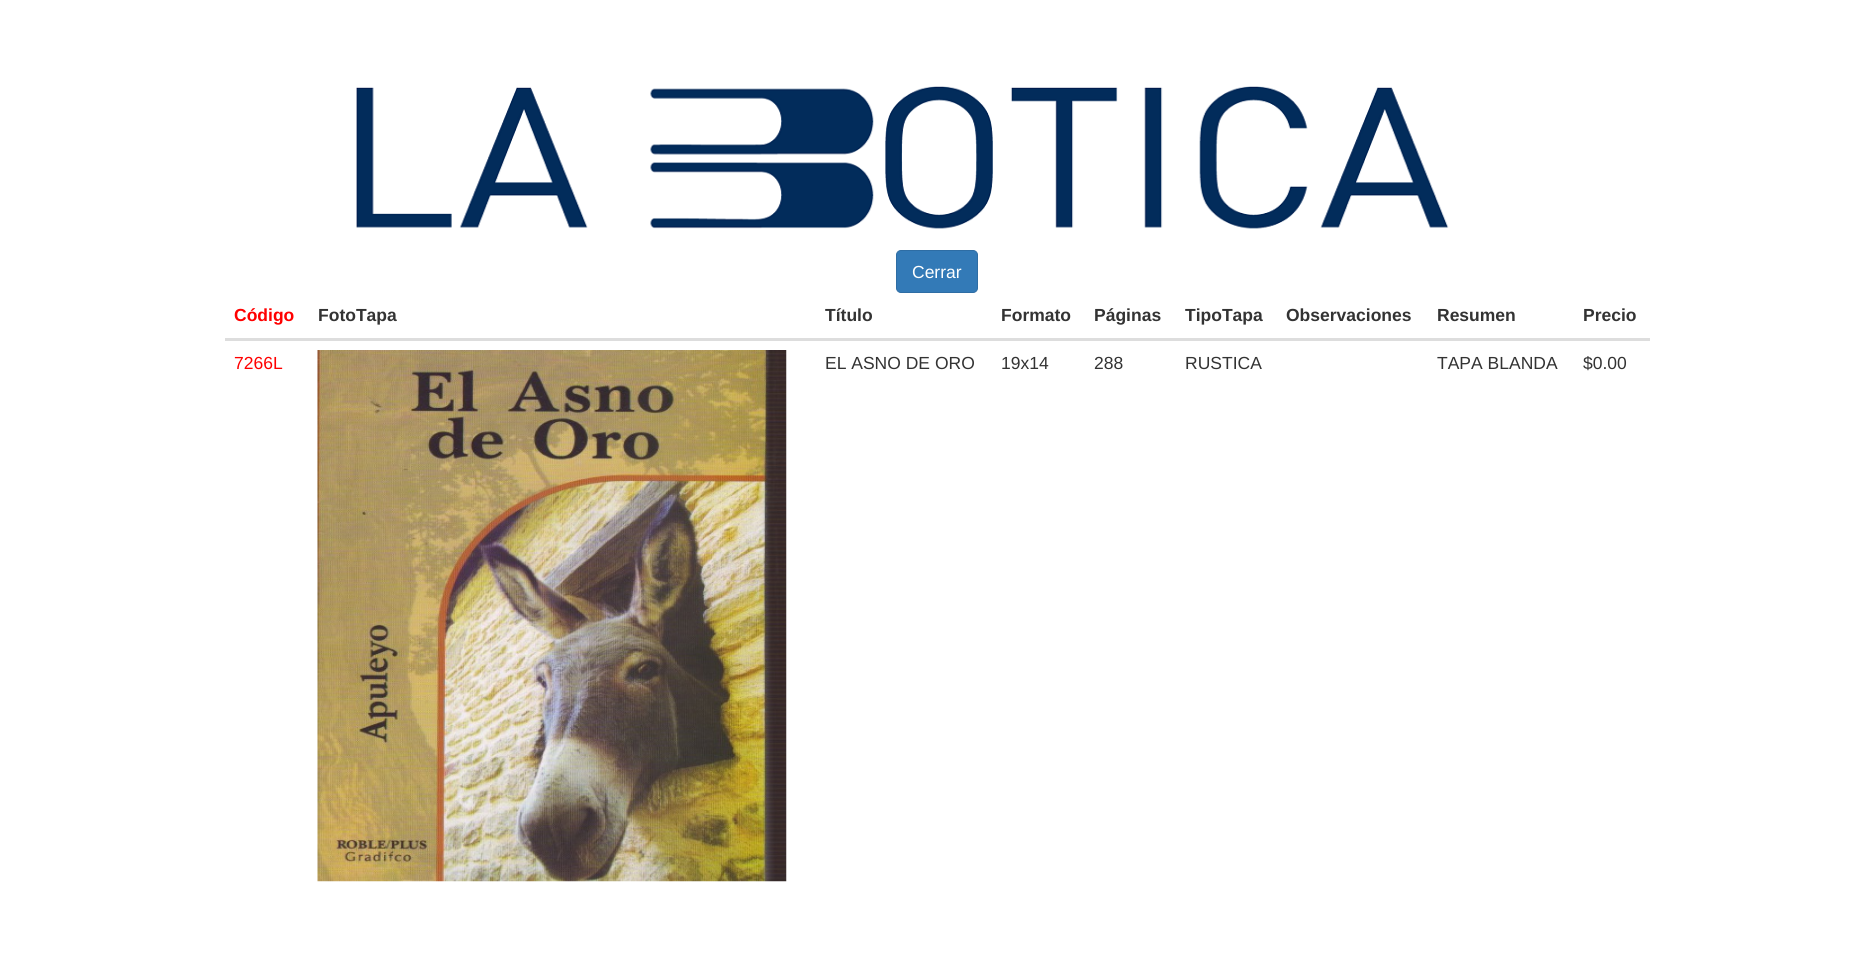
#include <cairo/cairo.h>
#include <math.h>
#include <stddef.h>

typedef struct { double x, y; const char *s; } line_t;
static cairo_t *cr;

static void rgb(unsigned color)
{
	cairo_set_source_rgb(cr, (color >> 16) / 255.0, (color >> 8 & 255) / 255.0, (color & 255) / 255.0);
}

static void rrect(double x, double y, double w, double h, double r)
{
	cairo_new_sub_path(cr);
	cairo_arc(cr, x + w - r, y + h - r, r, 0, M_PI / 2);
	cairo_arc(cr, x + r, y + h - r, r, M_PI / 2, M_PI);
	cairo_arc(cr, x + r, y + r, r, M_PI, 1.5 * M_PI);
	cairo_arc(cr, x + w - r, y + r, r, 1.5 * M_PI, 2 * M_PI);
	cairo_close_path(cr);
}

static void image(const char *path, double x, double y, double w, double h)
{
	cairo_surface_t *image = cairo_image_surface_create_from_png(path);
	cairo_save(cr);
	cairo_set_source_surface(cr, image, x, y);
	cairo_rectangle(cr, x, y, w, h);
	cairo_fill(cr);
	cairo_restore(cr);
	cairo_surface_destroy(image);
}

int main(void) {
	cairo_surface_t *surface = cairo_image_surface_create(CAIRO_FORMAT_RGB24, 1873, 962);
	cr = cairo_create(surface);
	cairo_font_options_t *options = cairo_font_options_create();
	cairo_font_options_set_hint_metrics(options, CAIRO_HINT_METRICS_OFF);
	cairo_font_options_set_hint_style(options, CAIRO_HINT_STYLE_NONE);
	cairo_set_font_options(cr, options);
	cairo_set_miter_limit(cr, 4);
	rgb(0xffffff);
	cairo_paint(cr);
	image("img/1.png", 356, 86, 1093, 143);
	rgb(0x337ab7);
	rrect(896.5, 250.5, 81, 42, 4.5);
	cairo_fill_preserve(cr);
	rgb(0x2e6da4);
	cairo_set_line_width(cr, 1);
	cairo_stroke(cr);
	rgb(0xdddddd);
	cairo_rectangle(cr, 225, 338, 1425, 3);
	cairo_fill(cr);
	image("img/2.png", 317, 350, 470, 532);
	cairo_select_font_face(cr, "Liberation Sans", CAIRO_FONT_SLANT_NORMAL, CAIRO_FONT_WEIGHT_NORMAL);
	cairo_set_font_size(cr, 17.5);
	rgb(0xffffff);
	cairo_move_to(cr, 912, 278);
	cairo_show_text(cr, "Cerrar");
	cairo_select_font_face(cr, "Liberation Sans", CAIRO_FONT_SLANT_NORMAL, CAIRO_FONT_WEIGHT_BOLD);
	rgb(0xff0000);
	cairo_move_to(cr, 234, 321);
	cairo_show_text(cr, "Código");
	rgb(0x333333);
	{
		static const line_t items[] = {
			{318, 321, "FotoTapa"},
			{825, 321, "Título"},
			{1001, 321, "Formato"},
			{1094, 321, "Páginas"},
			{1185, 321, "TipoTapa"},
			{1286, 321, "Observaciones"},
			{1437, 321, "Resumen"},
			{1583, 321, "Precio"},
		};
		for (size_t i = 0; i < sizeof items / sizeof *items; i++) {
			cairo_move_to(cr, items[i].x, items[i].y);
			cairo_show_text(cr, items[i].s);
		}
	}
	cairo_select_font_face(cr, "Liberation Sans", CAIRO_FONT_SLANT_NORMAL, CAIRO_FONT_WEIGHT_NORMAL);
	rgb(0xff0000);
	cairo_move_to(cr, 234, 369);
	cairo_show_text(cr, "7266L");
	rgb(0x333333);
	{
		static const line_t items[] = {
			{825, 369, "EL ASNO DE ORO"},
			{1001, 369, "19x14"},
			{1094, 369, "288"},
			{1185, 369, "RUSTICA"},
			{1437, 369, "TAPA BLANDA"},
			{1583, 369, "$0.00"},
		};
		for (size_t i = 0; i < sizeof items / sizeof *items; i++) {
			cairo_move_to(cr, items[i].x, items[i].y);
			cairo_show_text(cr, items[i].s);
		}
	}
	cairo_surface_write_to_png(surface, "page.png");
	cairo_font_options_destroy(options);
	cairo_destroy(cr);
	cairo_surface_destroy(surface);
	return 0;
}
